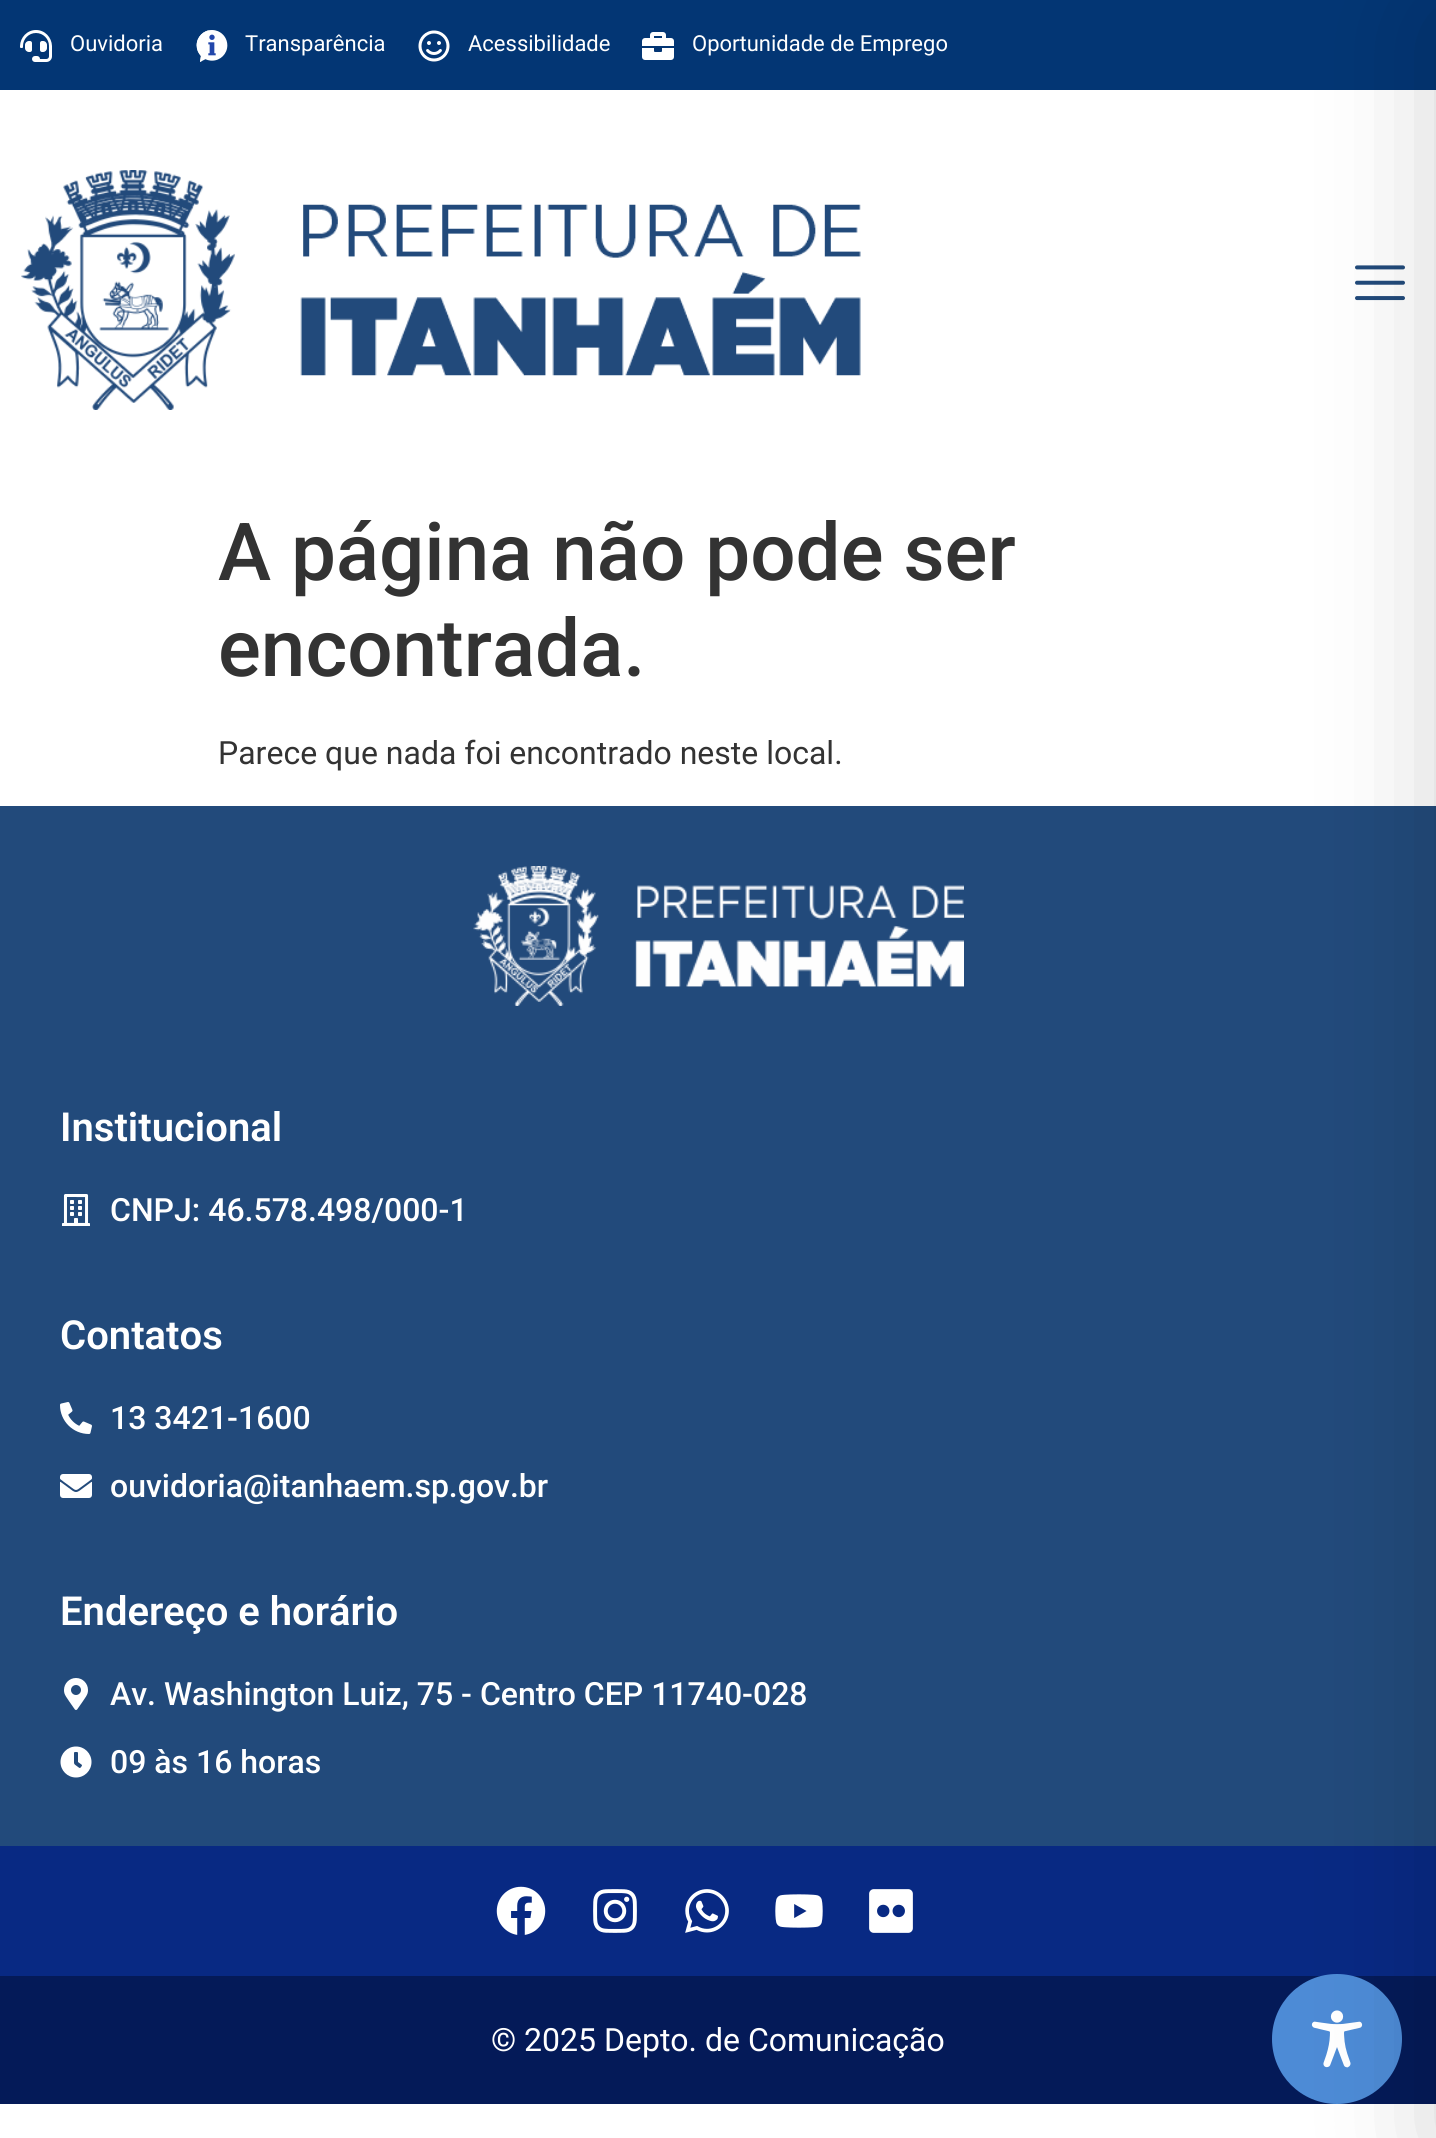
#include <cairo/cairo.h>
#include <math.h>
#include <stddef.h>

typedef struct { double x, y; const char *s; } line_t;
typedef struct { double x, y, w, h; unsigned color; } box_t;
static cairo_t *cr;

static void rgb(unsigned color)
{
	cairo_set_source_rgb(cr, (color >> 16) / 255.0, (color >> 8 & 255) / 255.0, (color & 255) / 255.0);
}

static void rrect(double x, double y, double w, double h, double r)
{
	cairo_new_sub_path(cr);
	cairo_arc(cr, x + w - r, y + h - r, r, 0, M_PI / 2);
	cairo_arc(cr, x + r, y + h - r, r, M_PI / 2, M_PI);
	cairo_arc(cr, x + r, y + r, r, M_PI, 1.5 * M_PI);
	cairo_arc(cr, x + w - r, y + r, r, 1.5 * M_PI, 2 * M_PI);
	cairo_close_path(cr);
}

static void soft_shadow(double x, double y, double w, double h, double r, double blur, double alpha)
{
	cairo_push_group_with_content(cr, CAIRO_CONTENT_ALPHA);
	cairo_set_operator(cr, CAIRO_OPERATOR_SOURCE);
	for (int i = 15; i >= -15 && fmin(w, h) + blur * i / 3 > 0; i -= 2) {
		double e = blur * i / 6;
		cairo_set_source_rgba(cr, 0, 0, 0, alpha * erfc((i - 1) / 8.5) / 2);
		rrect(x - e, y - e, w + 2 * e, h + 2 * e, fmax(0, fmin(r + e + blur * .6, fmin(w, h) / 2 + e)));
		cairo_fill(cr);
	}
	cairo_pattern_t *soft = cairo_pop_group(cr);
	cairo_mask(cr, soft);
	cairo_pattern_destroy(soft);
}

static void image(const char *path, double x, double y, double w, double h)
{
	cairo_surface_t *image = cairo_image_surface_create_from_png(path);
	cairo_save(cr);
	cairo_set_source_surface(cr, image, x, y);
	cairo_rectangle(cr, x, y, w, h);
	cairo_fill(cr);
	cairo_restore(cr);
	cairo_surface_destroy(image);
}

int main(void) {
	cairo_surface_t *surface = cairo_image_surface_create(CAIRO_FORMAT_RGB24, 1436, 2138);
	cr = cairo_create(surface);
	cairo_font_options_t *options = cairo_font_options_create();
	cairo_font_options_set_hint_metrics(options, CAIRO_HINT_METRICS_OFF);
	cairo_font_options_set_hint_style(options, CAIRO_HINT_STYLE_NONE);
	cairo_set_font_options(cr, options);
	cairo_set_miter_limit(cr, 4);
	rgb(0xffffff);
	cairo_paint(cr);
	rgb(0x033674);
	cairo_rectangle(cr, 0, 0, 1436, 90);
	cairo_fill(cr);
	image("img/1.png", 20, 30, 32, 32);
	image("img/2.png", 196, 30, 32, 32);
	image("img/3.png", 418, 30, 32, 32);
	image("img/4.png", 642, 32, 32, 28);
	image("img/5.png", 21, 170, 840, 240);
	image("img/6.png", 1355, 265, 50, 36);
	{
		static const box_t items[] = {
			{0, 806, 1436, 1040, 0x224a7b},
			{0, 1846, 1436, 130, 0x082983},
			{0, 1976, 1436, 128, 0x041a58},
		};
		for (size_t i = 0; i < sizeof items / sizeof *items; i++) {
			rgb(items[i].color);
			cairo_rectangle(cr, items[i].x, items[i].y, items[i].w, items[i].h);
			cairo_fill(cr);
		}
	}
	rgb(0x4d8bd6);
	cairo_arc(cr, 1337, 2039, 65, 0, 2 * M_PI);
	cairo_fill(cr);
	image("img/18.png", 1311, 2010, 52, 58);
	rgb(0x000000);
	soft_shadow(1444, 20, 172, 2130, 0, 60, 0.2);
	image("img/7.png", 473, 866, 491, 140);
	image("img/8.png", 62, 1194, 28, 32);
	image("img/9.png", 60, 1402, 32, 32);
	image("img/10.png", 60, 1474, 32, 24);
	image("img/11.png", 64, 1678, 24, 32);
	image("img/12.png", 60, 1746, 32, 32);
	image("img/13.png", 496, 1886, 50, 49);
	image("img/14.png", 593, 1889, 44, 44);
	image("img/15.png", 685, 1889, 44, 44);
	image("img/16.png", 775, 1894, 48, 34);
	image("img/17.png", 869, 1889, 44, 44);
	cairo_select_font_face(cr, "Roboto", CAIRO_FONT_SLANT_NORMAL, CAIRO_FONT_WEIGHT_NORMAL);
	cairo_set_font_size(cr, 22);
	rgb(0xffffff);
	{
		static const line_t items[] = {
			{70, 51, "Ouvidoria"},
			{245, 51, "Transparência"},
			{468, 51, "Acessibilidade"},
			{692, 51, "Oportunidade de Emprego"},
		};
		for (size_t i = 0; i < sizeof items / sizeof *items; i++) {
			cairo_move_to(cr, items[i].x, items[i].y);
			cairo_show_text(cr, items[i].s);
		}
	}
	cairo_select_font_face(cr, "Roboto Medium", CAIRO_FONT_SLANT_NORMAL, CAIRO_FONT_WEIGHT_NORMAL);
	cairo_set_font_size(cr, 80);
	rgb(0x333333);
	cairo_move_to(cr, 218, 580);
	cairo_show_text(cr, "A página não pode ser");
	cairo_move_to(cr, 218, 676);
	cairo_show_text(cr, "encontrada.");
	cairo_select_font_face(cr, "Roboto", CAIRO_FONT_SLANT_NORMAL, CAIRO_FONT_WEIGHT_NORMAL);
	cairo_set_font_size(cr, 32);
	cairo_move_to(cr, 218, 764);
	cairo_show_text(cr, "Parece que nada foi encontrado neste local.");
	cairo_select_font_face(cr, "Roboto SemiBold", CAIRO_FONT_SLANT_NORMAL, CAIRO_FONT_WEIGHT_NORMAL);
	cairo_set_font_size(cr, 40);
	rgb(0xffffff);
	cairo_move_to(cr, 60, 1141);
	cairo_show_text(cr, "Institucional");
	cairo_select_font_face(cr, "Roboto Medium", CAIRO_FONT_SLANT_NORMAL, CAIRO_FONT_WEIGHT_NORMAL);
	cairo_set_font_size(cr, 32);
	cairo_move_to(cr, 110, 1221);
	cairo_show_text(cr, "CNPJ: 46.578.498/000-1");
	cairo_select_font_face(cr, "Roboto SemiBold", CAIRO_FONT_SLANT_NORMAL, CAIRO_FONT_WEIGHT_NORMAL);
	cairo_set_font_size(cr, 40);
	cairo_move_to(cr, 60, 1349);
	cairo_show_text(cr, "Contatos");
	cairo_select_font_face(cr, "Roboto Medium", CAIRO_FONT_SLANT_NORMAL, CAIRO_FONT_WEIGHT_NORMAL);
	cairo_set_font_size(cr, 32);
	cairo_move_to(cr, 110, 1429);
	cairo_show_text(cr, "13 3421-1600");
	cairo_move_to(cr, 110, 1497);
	cairo_show_text(cr, "ouvidoria@itanhaem.sp.gov.br");
	cairo_select_font_face(cr, "Roboto SemiBold", CAIRO_FONT_SLANT_NORMAL, CAIRO_FONT_WEIGHT_NORMAL);
	cairo_set_font_size(cr, 40);
	cairo_move_to(cr, 60, 1625);
	cairo_show_text(cr, "Endereço e horário");
	cairo_select_font_face(cr, "Roboto Medium", CAIRO_FONT_SLANT_NORMAL, CAIRO_FONT_WEIGHT_NORMAL);
	cairo_set_font_size(cr, 32);
	cairo_move_to(cr, 110, 1705);
	cairo_show_text(cr, "Av. Washington Luiz, 75 - Centro CEP 11740-028");
	cairo_move_to(cr, 110, 1773);
	cairo_show_text(cr, "09 às 16 horas");
	cairo_select_font_face(cr, "Roboto", CAIRO_FONT_SLANT_NORMAL, CAIRO_FONT_WEIGHT_NORMAL);
	cairo_move_to(cr, 491, 2051);
	cairo_show_text(cr, "© 2025 Depto. de Comunicação");
	cairo_surface_write_to_png(surface, "page.png");
	cairo_font_options_destroy(options);
	cairo_destroy(cr);
	cairo_surface_destroy(surface);
	return 0;
}
